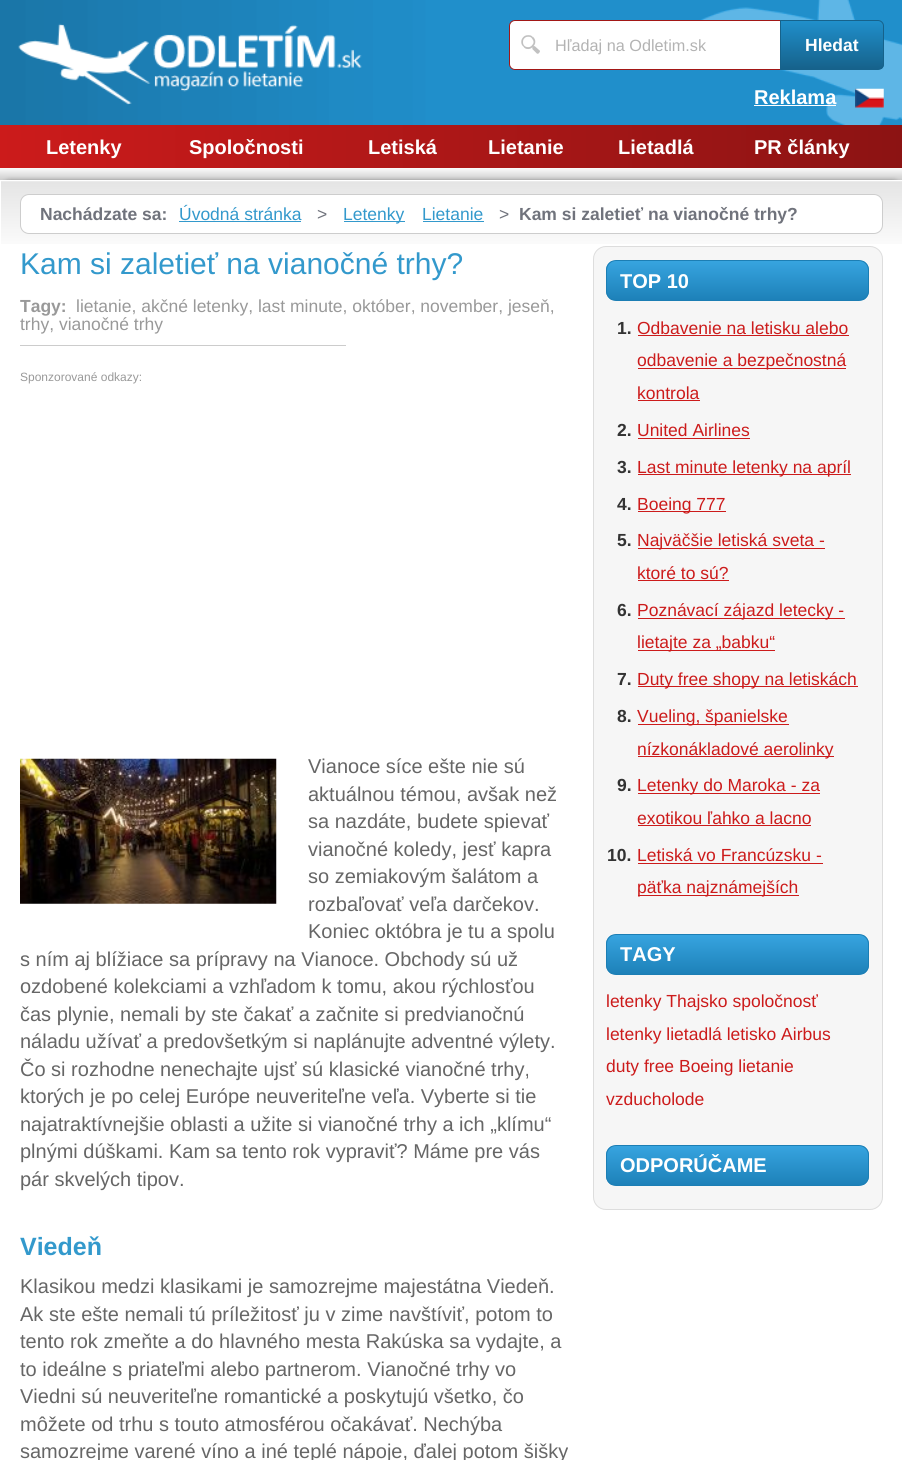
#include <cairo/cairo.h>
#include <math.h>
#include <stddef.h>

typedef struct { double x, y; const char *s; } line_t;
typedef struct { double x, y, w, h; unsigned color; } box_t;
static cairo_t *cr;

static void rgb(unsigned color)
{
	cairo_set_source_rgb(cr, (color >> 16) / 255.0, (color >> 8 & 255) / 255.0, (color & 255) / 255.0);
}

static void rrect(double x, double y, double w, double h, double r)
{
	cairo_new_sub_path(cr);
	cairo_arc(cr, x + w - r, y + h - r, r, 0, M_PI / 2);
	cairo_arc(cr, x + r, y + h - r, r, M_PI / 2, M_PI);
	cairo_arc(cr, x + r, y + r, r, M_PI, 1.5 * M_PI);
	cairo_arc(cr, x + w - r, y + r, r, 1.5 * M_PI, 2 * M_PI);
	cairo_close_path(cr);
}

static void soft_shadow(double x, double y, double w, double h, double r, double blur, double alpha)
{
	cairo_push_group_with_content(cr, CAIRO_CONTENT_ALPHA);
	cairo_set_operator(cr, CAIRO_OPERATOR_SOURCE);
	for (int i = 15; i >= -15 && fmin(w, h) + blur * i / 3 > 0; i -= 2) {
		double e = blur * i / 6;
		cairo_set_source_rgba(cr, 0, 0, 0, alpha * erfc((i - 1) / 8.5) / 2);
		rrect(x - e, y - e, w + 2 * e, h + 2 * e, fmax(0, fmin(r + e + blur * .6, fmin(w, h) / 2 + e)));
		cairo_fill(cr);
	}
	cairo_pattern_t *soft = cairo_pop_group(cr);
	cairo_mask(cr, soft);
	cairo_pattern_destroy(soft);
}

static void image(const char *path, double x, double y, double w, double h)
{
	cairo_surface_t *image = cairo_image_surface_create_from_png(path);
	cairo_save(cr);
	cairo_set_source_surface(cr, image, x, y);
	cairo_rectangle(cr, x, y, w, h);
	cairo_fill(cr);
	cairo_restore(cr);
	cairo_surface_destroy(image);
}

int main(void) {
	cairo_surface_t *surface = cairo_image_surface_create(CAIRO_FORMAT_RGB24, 902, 1460);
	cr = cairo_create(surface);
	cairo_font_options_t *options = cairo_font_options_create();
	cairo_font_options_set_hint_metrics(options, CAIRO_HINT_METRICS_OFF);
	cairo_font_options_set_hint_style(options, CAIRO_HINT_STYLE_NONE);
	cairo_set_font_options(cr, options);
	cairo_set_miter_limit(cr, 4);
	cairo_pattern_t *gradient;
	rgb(0xffffff);
	cairo_paint(cr);
	image("img/1.png", 0, 0, 902, 125);
	image("img/2.png", 18, 23, 344, 82);
	rgb(0xffffff);
	cairo_new_path(cr);
	cairo_move_to(cr, 515, 20.5);
	cairo_line_to(cr, 780.5, 20.5);
	cairo_line_to(cr, 780.5, 69.5);
	cairo_line_to(cr, 515, 69.5);
	cairo_curve_to(cr, 512, 69.5, 509.5, 67, 509.5, 64);
	cairo_line_to(cr, 509.5, 26);
	cairo_curve_to(cr, 509.5, 23, 512, 20.5, 515, 20.5);
	cairo_close_path(cr);
	cairo_fill_preserve(cr);
	rgb(0xa21716);
	cairo_set_line_width(cr, 1);
	cairo_stroke(cr);
	image("img/3.png", 521, 35, 19, 19);
	cairo_save(cr);
	cairo_new_path(cr);
	cairo_move_to(cr, 780, 20);
	cairo_line_to(cr, 878, 20);
	cairo_curve_to(cr, 881.5, 20, 884, 22.5, 884, 26);
	cairo_line_to(cr, 884, 64);
	cairo_curve_to(cr, 884, 67.5, 881.5, 70, 878, 70);
	cairo_line_to(cr, 780, 70);
	cairo_close_path(cr);
	cairo_clip(cr);
	gradient = cairo_pattern_create_linear(832, 21, 832, 69);
	cairo_pattern_add_color_stop_rgba(gradient, 0, 0.125, 0.561, 0.796, 1);
	cairo_pattern_add_color_stop_rgba(gradient, 1, 0.086, 0.384, 0.545, 1);
	cairo_set_source(cr, gradient);
	cairo_pattern_destroy(gradient);
	cairo_rectangle(cr, 781, 21, 103, 48);
	cairo_fill(cr);
	cairo_restore(cr);
	cairo_new_path(cr);
	cairo_move_to(cr, 780.5, 20.5);
	cairo_line_to(cr, 878, 20.5);
	cairo_curve_to(cr, 881, 20.5, 883.5, 23, 883.5, 26);
	cairo_line_to(cr, 883.5, 64);
	cairo_curve_to(cr, 883.5, 67, 881, 69.5, 878, 69.5);
	cairo_line_to(cr, 780.5, 69.5);
	cairo_close_path(cr);
	rgb(0x16628b);
	cairo_stroke(cr);
	gradient = cairo_pattern_create_linear(451, 167, 451, 180);
	cairo_pattern_add_color_stop_rgba(gradient, 0, 1, 1, 1, 1);
	cairo_pattern_add_color_stop_rgba(gradient, 1, 0.804, 0.804, 0.804, 1);
	cairo_set_source(cr, gradient);
	cairo_pattern_destroy(gradient);
	cairo_rectangle(cr, 0, 168, 902, 12);
	cairo_fill(cr);
	rgb(0x000000);
	soft_shadow(0, 180, 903, 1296, 10, 2, 0.3);
	rgb(0xffffff);
	cairo_rectangle(cr, 1, 181, 901, 1279);
	cairo_fill(cr);
	image("img/4.png", 1, 181, 901, 63);
	cairo_rectangle(cr, 0.5, 180.5, 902, 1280);
	cairo_stroke(cr);
	rrect(20.5, 194.5, 862, 39, 8.5);
	cairo_fill_preserve(cr);
	rgb(0xcdcdcd);
	cairo_stroke(cr);
	{
		static const box_t items[] = {
			{179, 221, 122, 1, 0x3399cc},
			{344, 221, 61, 1, 0x3399cc},
			{423, 221, 61, 1, 0x3399cc},
			{20, 345, 326, 1, 0xcccccc},
		};
		for (size_t i = 0; i < sizeof items / sizeof *items; i++) {
			rgb(items[i].color);
			cairo_rectangle(cr, items[i].x, items[i].y, items[i].w, items[i].h);
			cairo_fill(cr);
		}
	}
	image("img/5.png", 20, 758, 257, 146);
	rgb(0xf6f6f6);
	rrect(593.5, 246.5, 289, 963, 12.5);
	cairo_fill_preserve(cr);
	rgb(0xdddddd);
	cairo_stroke(cr);
	cairo_save(cr);
	rrect(606, 260, 263, 41, 10);
	cairo_clip(cr);
	gradient = cairo_pattern_create_linear(738, 261, 738, 300);
	cairo_pattern_add_color_stop_rgba(gradient, 0, 0.216, 0.643, 0.878, 1);
	cairo_pattern_add_color_stop_rgba(gradient, 1, 0.114, 0.506, 0.722, 1);
	cairo_set_source(cr, gradient);
	cairo_pattern_destroy(gradient);
	cairo_rectangle(cr, 606, 261, 263, 39);
	cairo_fill(cr);
	cairo_restore(cr);
	rrect(606.5, 260.5, 262, 40, 9.5);
	rgb(0x1c7eb4);
	cairo_stroke(cr);
	{
		static const box_t items[] = {
			{638, 335, 211, 1, 0xcc1b1b},
			{638, 368, 208, 1, 0xcc1b1b},
			{638, 400, 62, 1, 0xcc1b1b},
			{638, 438, 112, 1, 0xcc1b1b},
			{638, 474, 213, 1, 0xcc1b1b},
			{638, 511, 88, 1, 0xcc1b1b},
			{638, 548, 187, 1, 0xcc1b1b},
			{638, 580, 91, 1, 0xcc1b1b},
			{638, 618, 207, 1, 0xcc1b1b},
			{638, 650, 137, 1, 0xcc1b1b},
			{638, 686, 220, 1, 0xcc1b1b},
			{638, 724, 151, 1, 0xcc1b1b},
			{638, 756, 196, 1, 0xcc1b1b},
			{638, 793, 182, 1, 0xcc1b1b},
			{638, 825, 173, 1, 0xcc1b1b},
			{638, 863, 185, 1, 0xcc1b1b},
			{638, 895, 161, 1, 0xcc1b1b},
		};
		for (size_t i = 0; i < sizeof items / sizeof *items; i++) {
			rgb(items[i].color);
			cairo_rectangle(cr, items[i].x, items[i].y, items[i].w, items[i].h);
			cairo_fill(cr);
		}
	}
	cairo_save(cr);
	rrect(606, 934, 263, 41, 10);
	cairo_clip(cr);
	gradient = cairo_pattern_create_linear(738, 935, 738, 974);
	cairo_pattern_add_color_stop_rgba(gradient, 0, 0.216, 0.643, 0.878, 1);
	cairo_pattern_add_color_stop_rgba(gradient, 1, 0.114, 0.506, 0.722, 1);
	cairo_set_source(cr, gradient);
	cairo_pattern_destroy(gradient);
	cairo_rectangle(cr, 606, 935, 263, 39);
	cairo_fill(cr);
	cairo_restore(cr);
	rrect(606.5, 934.5, 262, 40, 9.5);
	rgb(0x1c7eb4);
	cairo_stroke(cr);
	cairo_save(cr);
	rrect(606, 1145, 263, 41, 10);
	cairo_clip(cr);
	gradient = cairo_pattern_create_linear(738, 1146, 738, 1185);
	cairo_pattern_add_color_stop_rgba(gradient, 0, 0.216, 0.643, 0.878, 1);
	cairo_pattern_add_color_stop_rgba(gradient, 1, 0.114, 0.506, 0.722, 1);
	cairo_set_source(cr, gradient);
	cairo_pattern_destroy(gradient);
	cairo_rectangle(cr, 606, 1146, 263, 39);
	cairo_fill(cr);
	cairo_restore(cr);
	rrect(606.5, 1145.5, 262, 40, 9.5);
	cairo_stroke(cr);
	gradient = cairo_pattern_create_linear(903, 146, 0, 146);
	cairo_pattern_add_color_stop_rgba(gradient, 0, 0.549, 0.075, 0.075, 1);
	cairo_pattern_add_color_stop_rgba(gradient, 1, 0.8, 0.106, 0.106, 1);
	cairo_set_source(cr, gradient);
	cairo_pattern_destroy(gradient);
	cairo_rectangle(cr, 0, 125, 902, 43);
	cairo_fill(cr);
	rgb(0xffffff);
	cairo_rectangle(cr, 754, 105, 82, 1);
	cairo_fill(cr);
	image("img/6.png", 855, 88, 29, 20);
	cairo_select_font_face(cr, "Liberation Sans", CAIRO_FONT_SLANT_NORMAL, CAIRO_FONT_WEIGHT_NORMAL);
	cairo_set_font_size(cr, 16.25);
	rgb(0xb3b3b3);
	cairo_move_to(cr, 555, 51);
	cairo_show_text(cr, "Hľadaj na Odletim.sk");
	cairo_select_font_face(cr, "Liberation Sans", CAIRO_FONT_SLANT_NORMAL, CAIRO_FONT_WEIGHT_BOLD);
	cairo_set_font_size(cr, 17.5);
	rgb(0xffffff);
	cairo_move_to(cr, 805, 51);
	cairo_show_text(cr, "Hledat");
	rgb(0x70737c);
	cairo_move_to(cr, 40, 220);
	cairo_show_text(cr, "Nachádzate sa:");
	cairo_select_font_face(cr, "Liberation Sans", CAIRO_FONT_SLANT_NORMAL, CAIRO_FONT_WEIGHT_NORMAL);
	rgb(0x3399cc);
	cairo_move_to(cr, 179, 220);
	cairo_show_text(cr, "Úvodná stránka");
	rgb(0x70737c);
	cairo_move_to(cr, 317, 220);
	cairo_show_text(cr, ">");
	rgb(0x3399cc);
	cairo_move_to(cr, 343, 220);
	cairo_show_text(cr, "Letenky");
	cairo_move_to(cr, 422, 220);
	cairo_show_text(cr, "Lietanie");
	rgb(0x70737c);
	cairo_move_to(cr, 499, 220);
	cairo_show_text(cr, ">");
	cairo_select_font_face(cr, "Liberation Sans", CAIRO_FONT_SLANT_NORMAL, CAIRO_FONT_WEIGHT_BOLD);
	cairo_move_to(cr, 519, 220);
	cairo_show_text(cr, "Kam si zaletieť na vianočné trhy?");
	cairo_select_font_face(cr, "Liberation Sans", CAIRO_FONT_SLANT_NORMAL, CAIRO_FONT_WEIGHT_NORMAL);
	cairo_set_font_size(cr, 30);
	rgb(0x3399cc);
	cairo_move_to(cr, 20, 274);
	cairo_show_text(cr, "Kam si zaletieť na vianočné trhy?");
	cairo_select_font_face(cr, "Liberation Sans", CAIRO_FONT_SLANT_NORMAL, CAIRO_FONT_WEIGHT_BOLD);
	cairo_set_font_size(cr, 17.5);
	rgb(0x999999);
	cairo_move_to(cr, 20, 312);
	cairo_show_text(cr, "Tagy:");
	cairo_select_font_face(cr, "Liberation Sans", CAIRO_FONT_SLANT_NORMAL, CAIRO_FONT_WEIGHT_NORMAL);
	cairo_move_to(cr, 76, 312);
	cairo_show_text(cr, "lietanie, akčné letenky, last minute, október, november, jeseň,");
	cairo_move_to(cr, 20, 330);
	cairo_show_text(cr, "trhy, vianočné trhy");
	cairo_set_font_size(cr, 12);
	cairo_move_to(cr, 20, 381);
	cairo_show_text(cr, "Sponzorované odkazy:");
	cairo_set_font_size(cr, 20);
	rgb(0x666666);
	{
		static const line_t items[] = {
			{308, 773, "Vianoce síce ešte nie sú"},
			{308, 801, "aktuálnou témou, avšak než"},
			{308, 828, "sa nazdáte, budete spievať"},
			{308, 856, "vianočné koledy, jesť kapra"},
			{308, 883, "so zemiakovým šalátom a"},
			{308, 911, "rozbaľovať veľa darčekov."},
			{308, 938, "Koniec októbra je tu a spolu"},
			{20, 966, "s ním aj blížiace sa prípravy na Vianoce. Obchody sú už"},
			{20, 993, "ozdobené kolekciami a vzhľadom k tomu, akou rýchlosťou"},
			{20, 1021, "čas plynie, nemali by ste čakať a začnite si predvianočnú"},
			{20, 1048, "náladu užívať a predovšetkým si naplánujte adventné výlety."},
			{20, 1076, "Čo si rozhodne nenechajte ujsť sú klasické vianočné trhy,"},
			{20, 1103, "ktorých je po celej Európe neuveriteľne veľa. Vyberte si tie"},
			{20, 1131, "najatraktívnejšie oblasti a užite si vianočné trhy a ich „klímu“"},
			{20, 1158, "plnými dúškami. Kam sa tento rok vypraviť? Máme pre vás"},
			{20, 1186, "pár skvelých tipov."},
		};
		for (size_t i = 0; i < sizeof items / sizeof *items; i++) {
			cairo_move_to(cr, items[i].x, items[i].y);
			cairo_show_text(cr, items[i].s);
		}
	}
	cairo_select_font_face(cr, "Liberation Sans", CAIRO_FONT_SLANT_NORMAL, CAIRO_FONT_WEIGHT_BOLD);
	cairo_set_font_size(cr, 25);
	rgb(0x3399cc);
	cairo_move_to(cr, 20, 1255);
	cairo_show_text(cr, "Viedeň");
	cairo_select_font_face(cr, "Liberation Sans", CAIRO_FONT_SLANT_NORMAL, CAIRO_FONT_WEIGHT_NORMAL);
	cairo_set_font_size(cr, 20);
	rgb(0x666666);
	{
		static const line_t items[] = {
			{20, 1293, "Klasikou medzi klasikami je samozrejme majestátna Viedeň."},
			{20, 1321, "Ak ste ešte nemali tú príležitosť ju v zime navštíviť, potom to"},
			{20, 1348, "tento rok zmeňte a do hlavného mesta Rakúska sa vydajte, a"},
			{20, 1376, "to ideálne s priateľmi alebo partnerom. Vianočné trhy vo"},
			{20, 1403, "Viedni sú neuveriteľne romantické a poskytujú všetko, čo"},
			{20, 1431, "môžete od trhu s touto atmosférou očakávať. Nechýba"},
			{20, 1458, "samozrejme varené víno a iné teplé nápoje, ďalej potom šišky"},
		};
		for (size_t i = 0; i < sizeof items / sizeof *items; i++) {
			cairo_move_to(cr, items[i].x, items[i].y);
			cairo_show_text(cr, items[i].s);
		}
	}
	cairo_select_font_face(cr, "Liberation Sans", CAIRO_FONT_SLANT_NORMAL, CAIRO_FONT_WEIGHT_BOLD);
	rgb(0xffffff);
	cairo_move_to(cr, 620, 288);
	cairo_show_text(cr, "TOP 10");
	cairo_set_font_size(cr, 17.5);
	rgb(0x333333);
	cairo_move_to(cr, 617, 334);
	cairo_show_text(cr, "1.");
	cairo_select_font_face(cr, "Liberation Sans", CAIRO_FONT_SLANT_NORMAL, CAIRO_FONT_WEIGHT_NORMAL);
	rgb(0xcc1b1b);
	{
		static const line_t items[] = {
			{637, 334, "Odbavenie na letisku alebo"},
			{637, 366, "odbavenie a bezpečnostná"},
			{637, 399, "kontrola"},
		};
		for (size_t i = 0; i < sizeof items / sizeof *items; i++) {
			cairo_move_to(cr, items[i].x, items[i].y);
			cairo_show_text(cr, items[i].s);
		}
	}
	cairo_select_font_face(cr, "Liberation Sans", CAIRO_FONT_SLANT_NORMAL, CAIRO_FONT_WEIGHT_BOLD);
	rgb(0x333333);
	cairo_move_to(cr, 617, 436);
	cairo_show_text(cr, "2.");
	cairo_select_font_face(cr, "Liberation Sans", CAIRO_FONT_SLANT_NORMAL, CAIRO_FONT_WEIGHT_NORMAL);
	rgb(0xcc1b1b);
	cairo_move_to(cr, 637, 436);
	cairo_show_text(cr, "United Airlines");
	cairo_select_font_face(cr, "Liberation Sans", CAIRO_FONT_SLANT_NORMAL, CAIRO_FONT_WEIGHT_BOLD);
	rgb(0x333333);
	cairo_move_to(cr, 617, 473);
	cairo_show_text(cr, "3.");
	cairo_select_font_face(cr, "Liberation Sans", CAIRO_FONT_SLANT_NORMAL, CAIRO_FONT_WEIGHT_NORMAL);
	rgb(0xcc1b1b);
	cairo_move_to(cr, 637, 473);
	cairo_show_text(cr, "Last minute letenky na apríl");
	cairo_select_font_face(cr, "Liberation Sans", CAIRO_FONT_SLANT_NORMAL, CAIRO_FONT_WEIGHT_BOLD);
	rgb(0x333333);
	cairo_move_to(cr, 617, 510);
	cairo_show_text(cr, "4.");
	cairo_select_font_face(cr, "Liberation Sans", CAIRO_FONT_SLANT_NORMAL, CAIRO_FONT_WEIGHT_NORMAL);
	rgb(0xcc1b1b);
	cairo_move_to(cr, 637, 510);
	cairo_show_text(cr, "Boeing 777");
	cairo_select_font_face(cr, "Liberation Sans", CAIRO_FONT_SLANT_NORMAL, CAIRO_FONT_WEIGHT_BOLD);
	rgb(0x333333);
	cairo_move_to(cr, 617, 546);
	cairo_show_text(cr, "5.");
	cairo_select_font_face(cr, "Liberation Sans", CAIRO_FONT_SLANT_NORMAL, CAIRO_FONT_WEIGHT_NORMAL);
	rgb(0xcc1b1b);
	cairo_move_to(cr, 637, 546);
	cairo_show_text(cr, "Najväčšie letiská sveta -");
	cairo_move_to(cr, 637, 579);
	cairo_show_text(cr, "ktoré to sú?");
	cairo_select_font_face(cr, "Liberation Sans", CAIRO_FONT_SLANT_NORMAL, CAIRO_FONT_WEIGHT_BOLD);
	rgb(0x333333);
	cairo_move_to(cr, 617, 616);
	cairo_show_text(cr, "6.");
	cairo_select_font_face(cr, "Liberation Sans", CAIRO_FONT_SLANT_NORMAL, CAIRO_FONT_WEIGHT_NORMAL);
	rgb(0xcc1b1b);
	cairo_move_to(cr, 637, 616);
	cairo_show_text(cr, "Poznávací zájazd letecky -");
	cairo_move_to(cr, 637, 648);
	cairo_show_text(cr, "lietajte za „babku“");
	cairo_select_font_face(cr, "Liberation Sans", CAIRO_FONT_SLANT_NORMAL, CAIRO_FONT_WEIGHT_BOLD);
	rgb(0x333333);
	cairo_move_to(cr, 617, 685);
	cairo_show_text(cr, "7.");
	cairo_select_font_face(cr, "Liberation Sans", CAIRO_FONT_SLANT_NORMAL, CAIRO_FONT_WEIGHT_NORMAL);
	rgb(0xcc1b1b);
	cairo_move_to(cr, 637, 685);
	cairo_show_text(cr, "Duty free shopy na letiskách");
	cairo_select_font_face(cr, "Liberation Sans", CAIRO_FONT_SLANT_NORMAL, CAIRO_FONT_WEIGHT_BOLD);
	rgb(0x333333);
	cairo_move_to(cr, 617, 722);
	cairo_show_text(cr, "8.");
	cairo_select_font_face(cr, "Liberation Sans", CAIRO_FONT_SLANT_NORMAL, CAIRO_FONT_WEIGHT_NORMAL);
	rgb(0xcc1b1b);
	cairo_move_to(cr, 637, 722);
	cairo_show_text(cr, "Vueling, španielske");
	cairo_move_to(cr, 637, 755);
	cairo_show_text(cr, "nízkonákladové aerolinky");
	cairo_select_font_face(cr, "Liberation Sans", CAIRO_FONT_SLANT_NORMAL, CAIRO_FONT_WEIGHT_BOLD);
	rgb(0x333333);
	cairo_move_to(cr, 617, 791);
	cairo_show_text(cr, "9.");
	cairo_select_font_face(cr, "Liberation Sans", CAIRO_FONT_SLANT_NORMAL, CAIRO_FONT_WEIGHT_NORMAL);
	rgb(0xcc1b1b);
	cairo_move_to(cr, 637, 791);
	cairo_show_text(cr, "Letenky do Maroka - za");
	cairo_move_to(cr, 637, 824);
	cairo_show_text(cr, "exotikou ľahko a lacno");
	cairo_select_font_face(cr, "Liberation Sans", CAIRO_FONT_SLANT_NORMAL, CAIRO_FONT_WEIGHT_BOLD);
	rgb(0x333333);
	cairo_move_to(cr, 607, 861);
	cairo_show_text(cr, "10.");
	cairo_select_font_face(cr, "Liberation Sans", CAIRO_FONT_SLANT_NORMAL, CAIRO_FONT_WEIGHT_NORMAL);
	rgb(0xcc1b1b);
	cairo_move_to(cr, 637, 861);
	cairo_show_text(cr, "Letiská vo Francúzsku -");
	cairo_move_to(cr, 637, 893);
	cairo_show_text(cr, "päťka najznámejších");
	cairo_select_font_face(cr, "Liberation Sans", CAIRO_FONT_SLANT_NORMAL, CAIRO_FONT_WEIGHT_BOLD);
	cairo_set_font_size(cr, 20);
	rgb(0xffffff);
	cairo_move_to(cr, 620, 961);
	cairo_show_text(cr, "TAGY");
	cairo_select_font_face(cr, "Liberation Sans", CAIRO_FONT_SLANT_NORMAL, CAIRO_FONT_WEIGHT_NORMAL);
	cairo_set_font_size(cr, 17.5);
	rgb(0xcc1b1b);
	{
		static const line_t items[] = {
			{606, 1007, "letenky Thajsko spoločnosť"},
			{606, 1040, "letenky lietadlá letisko Airbus"},
			{606, 1072, "duty free Boeing lietanie"},
			{606, 1105, "vzducholode"},
		};
		for (size_t i = 0; i < sizeof items / sizeof *items; i++) {
			cairo_move_to(cr, items[i].x, items[i].y);
			cairo_show_text(cr, items[i].s);
		}
	}
	cairo_select_font_face(cr, "Liberation Sans", CAIRO_FONT_SLANT_NORMAL, CAIRO_FONT_WEIGHT_BOLD);
	cairo_set_font_size(cr, 20);
	rgb(0xffffff);
	{
		static const line_t items[] = {
			{620, 1172, "ODPORÚČAME"},
			{754, 104, "Reklama"},
			{46, 154, "Letenky"},
			{189, 154, "Spoločnosti"},
			{368, 154, "Letiská"},
			{488, 154, "Lietanie"},
			{618, 154, "Lietadlá"},
			{754, 154, "PR články"},
		};
		for (size_t i = 0; i < sizeof items / sizeof *items; i++) {
			cairo_move_to(cr, items[i].x, items[i].y);
			cairo_show_text(cr, items[i].s);
		}
	}
	cairo_surface_write_to_png(surface, "page.png");
	cairo_font_options_destroy(options);
	cairo_destroy(cr);
	cairo_surface_destroy(surface);
	return 0;
}
